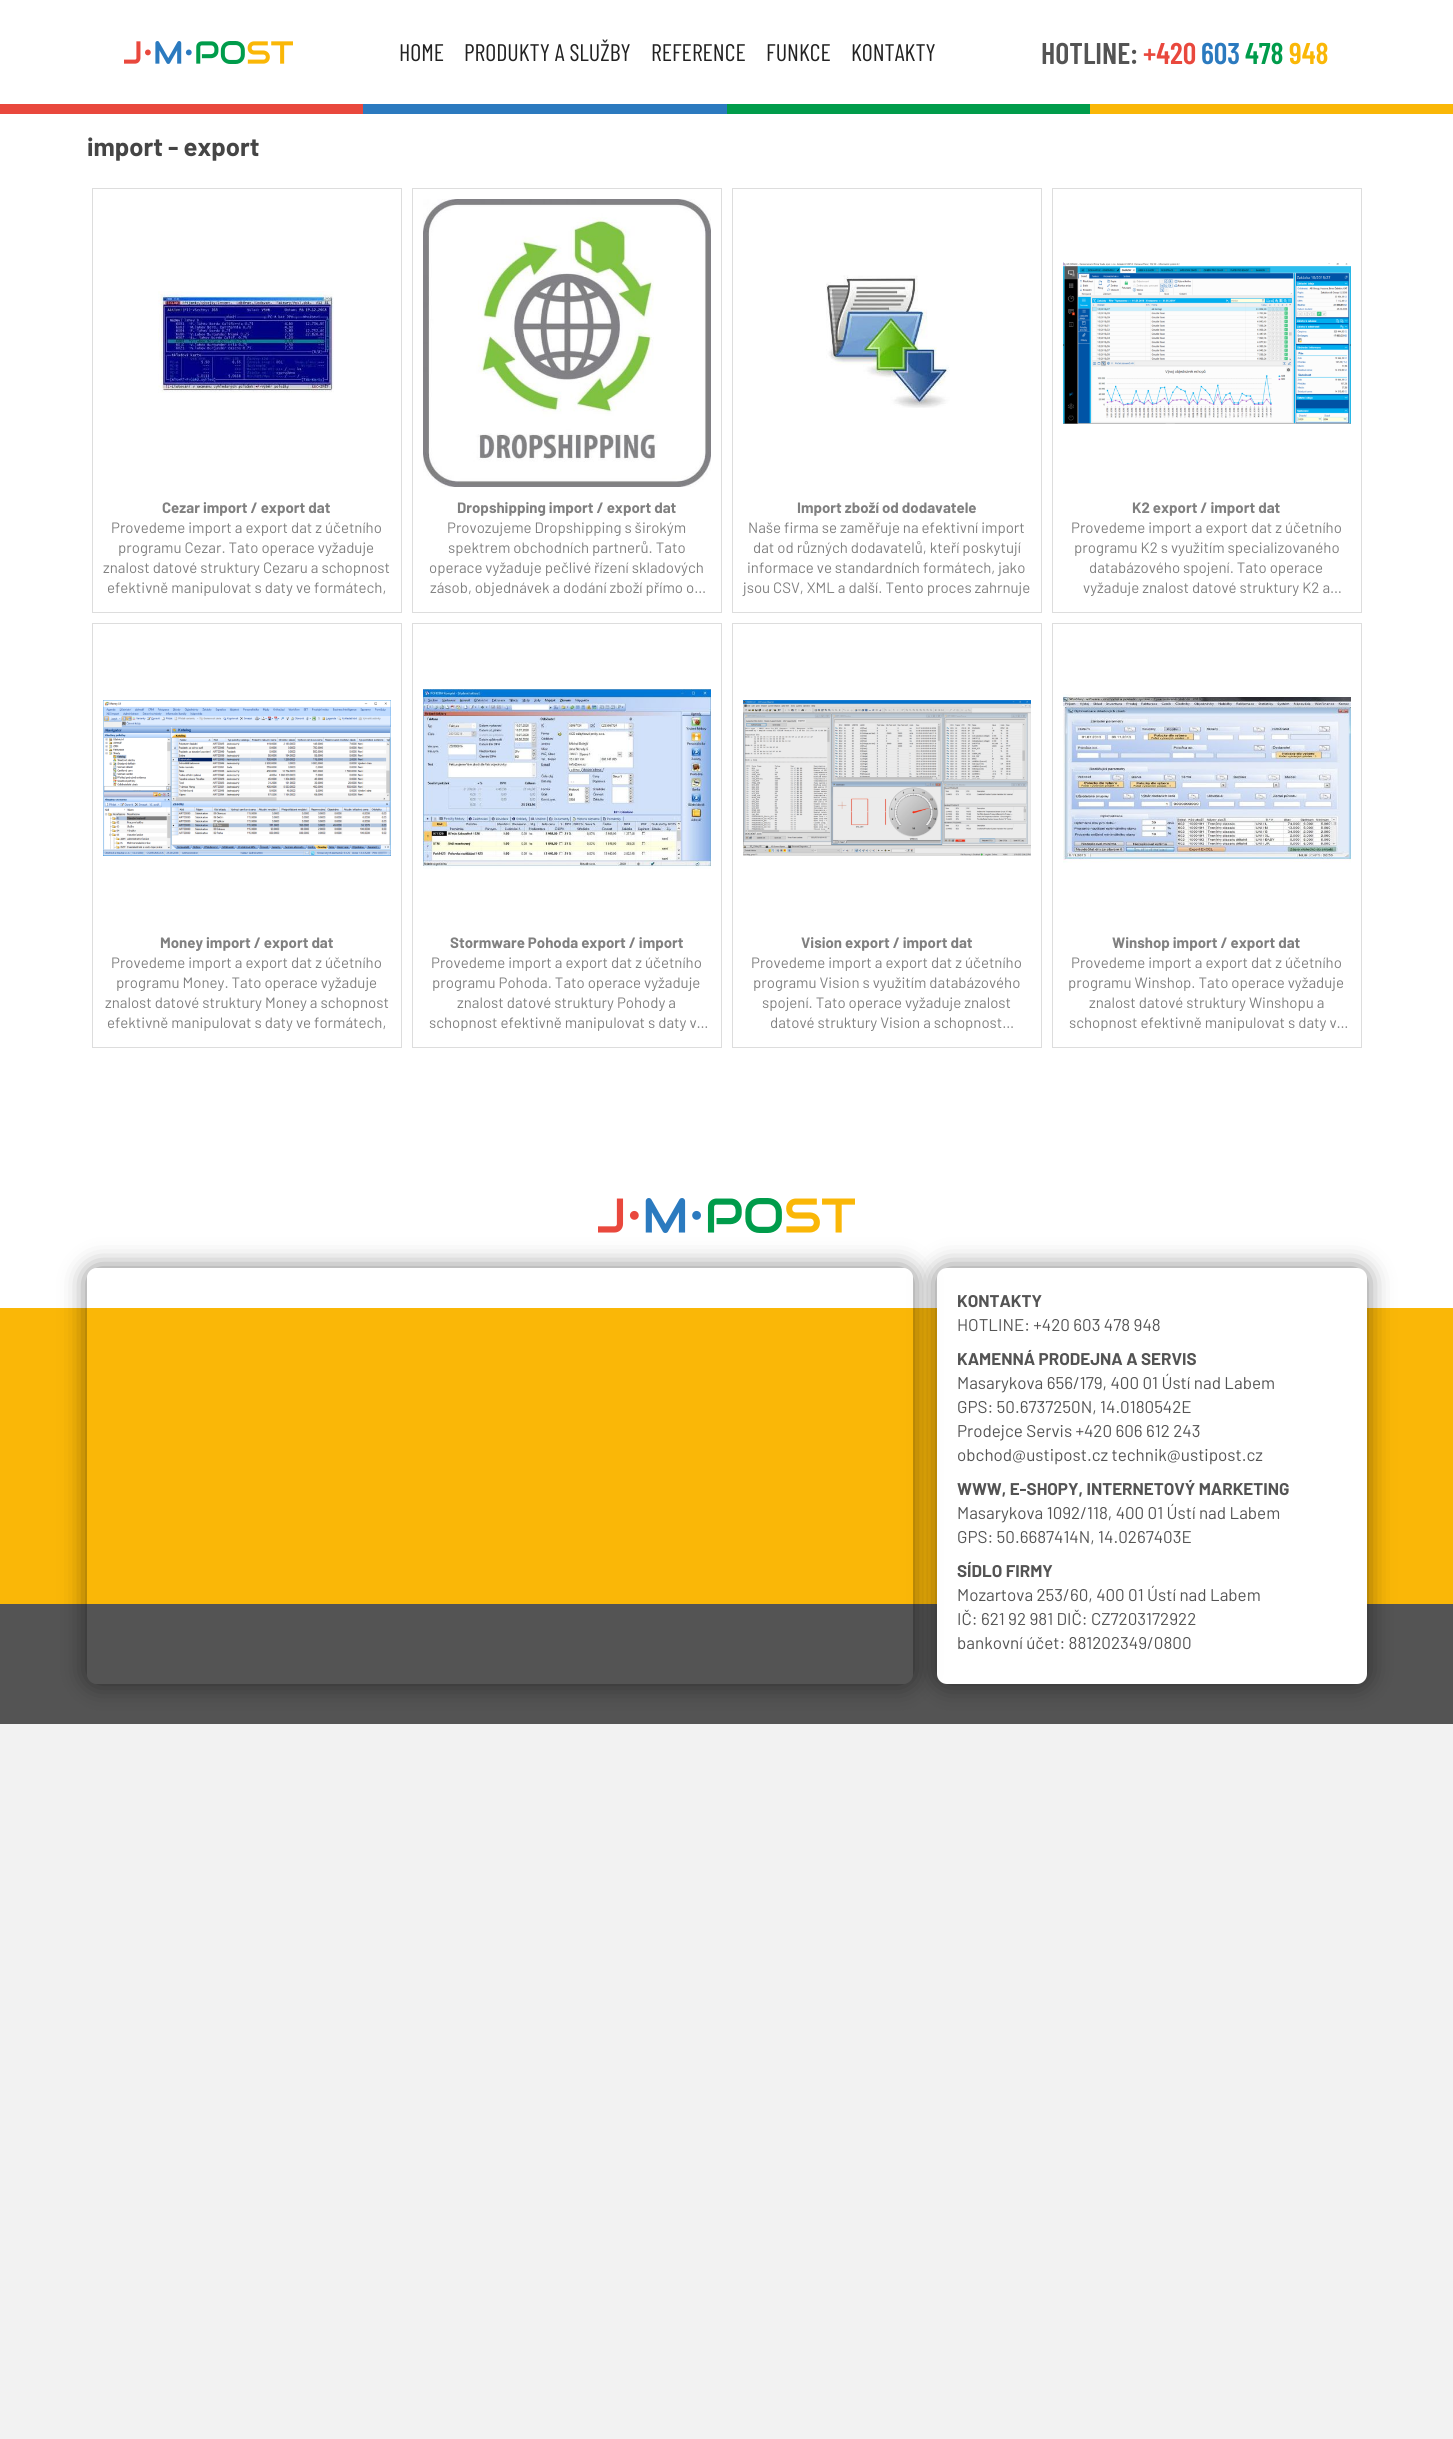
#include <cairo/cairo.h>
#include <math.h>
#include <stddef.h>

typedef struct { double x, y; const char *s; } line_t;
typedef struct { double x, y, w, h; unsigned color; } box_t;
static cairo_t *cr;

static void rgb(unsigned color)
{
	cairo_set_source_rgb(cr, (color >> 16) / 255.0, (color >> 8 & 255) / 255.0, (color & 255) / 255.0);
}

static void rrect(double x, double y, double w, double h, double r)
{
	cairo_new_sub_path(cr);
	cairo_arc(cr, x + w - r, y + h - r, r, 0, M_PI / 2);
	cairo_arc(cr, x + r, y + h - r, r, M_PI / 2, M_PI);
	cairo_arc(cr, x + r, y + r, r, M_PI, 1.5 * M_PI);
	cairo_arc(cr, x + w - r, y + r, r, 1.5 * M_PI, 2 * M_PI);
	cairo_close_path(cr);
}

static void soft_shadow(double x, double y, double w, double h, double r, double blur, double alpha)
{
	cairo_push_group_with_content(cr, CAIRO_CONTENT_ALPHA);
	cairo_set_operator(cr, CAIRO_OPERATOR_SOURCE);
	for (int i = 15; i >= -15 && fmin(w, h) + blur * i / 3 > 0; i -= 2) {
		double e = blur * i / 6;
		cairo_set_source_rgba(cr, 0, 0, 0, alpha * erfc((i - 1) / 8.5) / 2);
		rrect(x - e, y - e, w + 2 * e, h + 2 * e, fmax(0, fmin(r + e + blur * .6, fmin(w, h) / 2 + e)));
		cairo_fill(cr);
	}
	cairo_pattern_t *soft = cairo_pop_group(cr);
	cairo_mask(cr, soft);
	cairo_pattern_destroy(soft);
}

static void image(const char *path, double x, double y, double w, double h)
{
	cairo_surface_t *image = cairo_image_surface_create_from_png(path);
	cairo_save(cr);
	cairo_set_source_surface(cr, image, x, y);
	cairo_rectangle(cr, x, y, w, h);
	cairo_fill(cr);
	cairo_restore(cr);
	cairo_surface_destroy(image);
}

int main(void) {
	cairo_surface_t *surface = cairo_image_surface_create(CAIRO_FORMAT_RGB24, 1453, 2439);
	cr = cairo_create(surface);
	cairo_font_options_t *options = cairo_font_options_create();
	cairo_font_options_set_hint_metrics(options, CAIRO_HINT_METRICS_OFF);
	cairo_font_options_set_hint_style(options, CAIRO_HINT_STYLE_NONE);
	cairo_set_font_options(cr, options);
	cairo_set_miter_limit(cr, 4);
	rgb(0xf2f2f2);
	cairo_paint(cr);
	rgb(0xffffff);
	cairo_rectangle(cr, 0, 0, 1453, 104);
	cairo_fill(cr);
	image("img/1.png", 124, 41, 169, 23);
	{
		static const box_t items[] = {
			{0, 104, 363, 10, 0xe9483d},
			{363, 104, 364, 10, 0x2b7abf},
			{727, 104, 363, 10, 0x009c4b},
			{1090, 104, 363, 10, 0xfab707},
			{0, 114, 1453, 1194, 0xffffff},
		};
		for (size_t i = 0; i < sizeof items / sizeof *items; i++) {
			rgb(items[i].color);
			cairo_rectangle(cr, items[i].x, items[i].y, items[i].w, items[i].h);
			cairo_fill(cr);
		}
	}
	cairo_rectangle(cr, 92.5, 188.5, 309, 424);
	rgb(0xdddddd);
	cairo_set_line_width(cr, 1);
	cairo_stroke(cr);
	image("img/2.png", 158, 291, 176, 102);
	cairo_rectangle(cr, 412.5, 188.5, 309, 424);
	cairo_stroke(cr);
	image("img/3.png", 423, 199, 288, 288);
	cairo_rectangle(cr, 732.5, 188.5, 309, 424);
	cairo_stroke(cr);
	image("img/4.png", 826, 275, 124, 133);
	cairo_rectangle(cr, 1052.5, 188.5, 309, 424);
	cairo_stroke(cr);
	image("img/5.png", 1063, 262, 288, 162);
	cairo_rectangle(cr, 92.5, 623.5, 309, 424);
	cairo_stroke(cr);
	image("img/6.png", 103, 700, 288, 156);
	cairo_rectangle(cr, 412.5, 623.5, 309, 424);
	cairo_stroke(cr);
	image("img/7.png", 423, 689, 288, 180);
	cairo_rectangle(cr, 732.5, 623.5, 309, 424);
	cairo_stroke(cr);
	image("img/8.png", 743, 700, 288, 156);
	cairo_rectangle(cr, 1052.5, 623.5, 309, 424);
	cairo_stroke(cr);
	image("img/9.png", 1063, 694, 288, 169);
	image("img/10.png", 598, 1198, 257, 35);
	rgb(0xfab707);
	cairo_rectangle(cr, 0, 1308, 1453, 296);
	cairo_fill(cr);
	rgb(0x545454);
	cairo_rectangle(cr, 0, 1604, 1453, 120);
	cairo_fill(cr);
	rgb(0x000000);
	soft_shadow(937, 1268, 430, 416, 10, 12.5, 0.5);
	rgb(0xffffff);
	rrect(937, 1268, 430, 416, 10);
	cairo_fill(cr);
	cairo_save(cr);
	cairo_set_fill_rule(cr, CAIRO_FILL_RULE_EVEN_ODD);
	cairo_new_path(cr);
	cairo_move_to(cr, 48, 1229);
	cairo_line_to(cr, 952, 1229);
	cairo_line_to(cr, 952, 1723);
	cairo_line_to(cr, 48, 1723);
	cairo_close_path(cr);
	cairo_move_to(cr, 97, 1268);
	cairo_line_to(cr, 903, 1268);
	cairo_curve_to(cr, 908.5, 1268, 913, 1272.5, 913, 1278);
	cairo_line_to(cr, 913, 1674);
	cairo_curve_to(cr, 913, 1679.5, 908.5, 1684, 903, 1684);
	cairo_line_to(cr, 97, 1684);
	cairo_curve_to(cr, 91.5, 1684, 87, 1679.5, 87, 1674);
	cairo_line_to(cr, 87, 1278);
	cairo_curve_to(cr, 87, 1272.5, 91.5, 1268, 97, 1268);
	cairo_close_path(cr);
	cairo_clip(cr);
	rgb(0x000000);
	soft_shadow(87, 1268, 826, 416, 10, 12.5, 0.5);
	cairo_restore(cr);
	cairo_select_font_face(cr, "Barlow Condensed", CAIRO_FONT_SLANT_NORMAL, CAIRO_FONT_WEIGHT_NORMAL);
	cairo_set_font_size(cr, 24);
	rgb(0x222222);
	{
		static const line_t items[] = {
			{399, 61, "HOME"},
			{464, 61, "PRODUKTY A SLUŽBY"},
			{651, 61, "REFERENCE"},
			{766, 61, "FUNKCE"},
			{851, 61, "KONTAKTY"},
		};
		for (size_t i = 0; i < sizeof items / sizeof *items; i++) {
			cairo_move_to(cr, items[i].x, items[i].y);
			cairo_show_text(cr, items[i].s);
		}
	}
	cairo_select_font_face(cr, "Barlow Condensed SemiBold", CAIRO_FONT_SLANT_NORMAL, CAIRO_FONT_WEIGHT_NORMAL);
	cairo_set_font_size(cr, 30);
	rgb(0x545454);
	cairo_move_to(cr, 1041, 64);
	cairo_show_text(cr, "HOTLINE:");
	rgb(0xe9483d);
	cairo_move_to(cr, 1143, 64);
	cairo_show_text(cr, "+420");
	rgb(0x2b7abf);
	cairo_move_to(cr, 1201, 64);
	cairo_show_text(cr, "603");
	rgb(0x009c4b);
	cairo_move_to(cr, 1245, 64);
	cairo_show_text(cr, "478");
	rgb(0xfab707);
	cairo_move_to(cr, 1289, 64);
	cairo_show_text(cr, "948");
	cairo_select_font_face(cr, "Barlow", CAIRO_FONT_SLANT_NORMAL, CAIRO_FONT_WEIGHT_BOLD);
	cairo_set_font_size(cr, 25.5);
	rgb(0x454545);
	cairo_move_to(cr, 87, 156);
	cairo_show_text(cr, "import - export");
	cairo_set_font_size(cr, 15);
	rgb(0x808080);
	cairo_move_to(cr, 162, 513);
	cairo_show_text(cr, "Cezar import / export dat");
	cairo_select_font_face(cr, "Barlow", CAIRO_FONT_SLANT_NORMAL, CAIRO_FONT_WEIGHT_NORMAL);
	{
		static const line_t items[] = {
			{111, 533, "Provedeme import a export dat z účetního"},
			{118, 553, "programu Cezar. Tato operace vyžaduje"},
			{103, 573, "znalost datové struktury Cezaru a schopnost"},
			{107, 593, "efektivně manipulovat s daty ve formátech,"},
		};
		for (size_t i = 0; i < sizeof items / sizeof *items; i++) {
			cairo_move_to(cr, items[i].x, items[i].y);
			cairo_show_text(cr, items[i].s);
		}
	}
	cairo_select_font_face(cr, "Barlow", CAIRO_FONT_SLANT_NORMAL, CAIRO_FONT_WEIGHT_BOLD);
	cairo_move_to(cr, 457, 513);
	cairo_show_text(cr, "Dropshipping import / export dat");
	cairo_select_font_face(cr, "Barlow", CAIRO_FONT_SLANT_NORMAL, CAIRO_FONT_WEIGHT_NORMAL);
	{
		static const line_t items[] = {
			{447, 533, "Provozujeme Dropshipping s širokým"},
			{448, 553, "spektrem obchodních partnerů. Tato"},
			{429, 573, "operace vyžaduje pečlivé řízení skladových"},
			{430, 593, "zásob, objednávek a dodání zboží přímo o…"},
		};
		for (size_t i = 0; i < sizeof items / sizeof *items; i++) {
			cairo_move_to(cr, items[i].x, items[i].y);
			cairo_show_text(cr, items[i].s);
		}
	}
	cairo_select_font_face(cr, "Barlow", CAIRO_FONT_SLANT_NORMAL, CAIRO_FONT_WEIGHT_BOLD);
	cairo_move_to(cr, 797, 513);
	cairo_show_text(cr, "Import zboží od dodavatele");
	cairo_select_font_face(cr, "Barlow", CAIRO_FONT_SLANT_NORMAL, CAIRO_FONT_WEIGHT_NORMAL);
	{
		static const line_t items[] = {
			{748, 533, "Naše firma se zaměřuje na efektivní import"},
			{753, 553, "dat od různých dodavatelů, kteří poskytují"},
			{747, 573, "informace ve standardních formátech, jako"},
			{743, 593, "jsou CSV, XML a další. Tento proces zahrnuje"},
		};
		for (size_t i = 0; i < sizeof items / sizeof *items; i++) {
			cairo_move_to(cr, items[i].x, items[i].y);
			cairo_show_text(cr, items[i].s);
		}
	}
	cairo_select_font_face(cr, "Barlow", CAIRO_FONT_SLANT_NORMAL, CAIRO_FONT_WEIGHT_BOLD);
	cairo_move_to(cr, 1132, 513);
	cairo_show_text(cr, "K2 export / import dat");
	cairo_select_font_face(cr, "Barlow", CAIRO_FONT_SLANT_NORMAL, CAIRO_FONT_WEIGHT_NORMAL);
	{
		static const line_t items[] = {
			{1071, 533, "Provedeme import a export dat z účetního"},
			{1074, 553, "programu K2 s využitím specializovaného"},
			{1089, 573, "databázového spojení. Tato operace"},
			{1083, 593, "vyžaduje znalost datové struktury K2 a…"},
		};
		for (size_t i = 0; i < sizeof items / sizeof *items; i++) {
			cairo_move_to(cr, items[i].x, items[i].y);
			cairo_show_text(cr, items[i].s);
		}
	}
	cairo_select_font_face(cr, "Barlow", CAIRO_FONT_SLANT_NORMAL, CAIRO_FONT_WEIGHT_BOLD);
	cairo_move_to(cr, 160, 948);
	cairo_show_text(cr, "Money import / export dat");
	cairo_select_font_face(cr, "Barlow", CAIRO_FONT_SLANT_NORMAL, CAIRO_FONT_WEIGHT_NORMAL);
	{
		static const line_t items[] = {
			{111, 968, "Provedeme import a export dat z účetního"},
			{116, 988, "programu Money. Tato operace vyžaduje"},
			{105, 1008, "znalost datové struktury Money a schopnost"},
			{107, 1028, "efektivně manipulovat s daty ve formátech,"},
		};
		for (size_t i = 0; i < sizeof items / sizeof *items; i++) {
			cairo_move_to(cr, items[i].x, items[i].y);
			cairo_show_text(cr, items[i].s);
		}
	}
	cairo_select_font_face(cr, "Barlow", CAIRO_FONT_SLANT_NORMAL, CAIRO_FONT_WEIGHT_BOLD);
	cairo_move_to(cr, 450, 948);
	cairo_show_text(cr, "Stormware Pohoda export / import");
	cairo_select_font_face(cr, "Barlow", CAIRO_FONT_SLANT_NORMAL, CAIRO_FONT_WEIGHT_NORMAL);
	{
		static const line_t items[] = {
			{431, 968, "Provedeme import a export dat z účetního"},
			{432, 988, "programu Pohoda. Tato operace vyžaduje"},
			{457, 1008, "znalost datové struktury Pohody a"},
			{429, 1028, "schopnost efektivně manipulovat s daty v…"},
		};
		for (size_t i = 0; i < sizeof items / sizeof *items; i++) {
			cairo_move_to(cr, items[i].x, items[i].y);
			cairo_show_text(cr, items[i].s);
		}
	}
	cairo_select_font_face(cr, "Barlow", CAIRO_FONT_SLANT_NORMAL, CAIRO_FONT_WEIGHT_BOLD);
	cairo_move_to(cr, 801, 948);
	cairo_show_text(cr, "Vision export / import dat");
	cairo_select_font_face(cr, "Barlow", CAIRO_FONT_SLANT_NORMAL, CAIRO_FONT_WEIGHT_NORMAL);
	{
		static const line_t items[] = {
			{751, 968, "Provedeme import a export dat z účetního"},
			{753, 988, "programu Vision s využitím databázového"},
			{762, 1008, "spojení. Tato operace vyžaduje znalost"},
			{770, 1028, "datové struktury Vision a schopnost…"},
		};
		for (size_t i = 0; i < sizeof items / sizeof *items; i++) {
			cairo_move_to(cr, items[i].x, items[i].y);
			cairo_show_text(cr, items[i].s);
		}
	}
	cairo_select_font_face(cr, "Barlow", CAIRO_FONT_SLANT_NORMAL, CAIRO_FONT_WEIGHT_BOLD);
	cairo_move_to(cr, 1112, 948);
	cairo_show_text(cr, "Winshop import / export dat");
	cairo_select_font_face(cr, "Barlow", CAIRO_FONT_SLANT_NORMAL, CAIRO_FONT_WEIGHT_NORMAL);
	{
		static const line_t items[] = {
			{1071, 968, "Provedeme import a export dat z účetního"},
			{1068, 988, "programu Winshop. Tato operace vyžaduje"},
			{1089, 1008, "znalost datové struktury Winshopu a"},
			{1069, 1028, "schopnost efektivně manipulovat s daty v…"},
		};
		for (size_t i = 0; i < sizeof items / sizeof *items; i++) {
			cairo_move_to(cr, items[i].x, items[i].y);
			cairo_show_text(cr, items[i].s);
		}
	}
	cairo_select_font_face(cr, "Barlow", CAIRO_FONT_SLANT_NORMAL, CAIRO_FONT_WEIGHT_BOLD);
	cairo_set_font_size(cr, 17);
	rgb(0x545454);
	cairo_move_to(cr, 957, 1307);
	cairo_show_text(cr, "KONTAKTY");
	cairo_select_font_face(cr, "Barlow", CAIRO_FONT_SLANT_NORMAL, CAIRO_FONT_WEIGHT_NORMAL);
	cairo_move_to(cr, 957, 1331);
	cairo_show_text(cr, "HOTLINE: +420 603 478 948");
	cairo_select_font_face(cr, "Barlow", CAIRO_FONT_SLANT_NORMAL, CAIRO_FONT_WEIGHT_BOLD);
	cairo_move_to(cr, 957, 1365);
	cairo_show_text(cr, "KAMENNÁ PRODEJNA A SERVIS");
	cairo_select_font_face(cr, "Barlow", CAIRO_FONT_SLANT_NORMAL, CAIRO_FONT_WEIGHT_NORMAL);
	{
		static const line_t items[] = {
			{957, 1389, "Masarykova 656/179, 400 01 Ústí nad Labem"},
			{957, 1413, "GPS: 50.6737250N, 14.0180542E"},
			{957, 1437, "Prodejce Servis +420 606 612 243"},
			{957, 1461, "obchod@ustipost.cz technik@ustipost.cz"},
		};
		for (size_t i = 0; i < sizeof items / sizeof *items; i++) {
			cairo_move_to(cr, items[i].x, items[i].y);
			cairo_show_text(cr, items[i].s);
		}
	}
	cairo_select_font_face(cr, "Barlow", CAIRO_FONT_SLANT_NORMAL, CAIRO_FONT_WEIGHT_BOLD);
	cairo_move_to(cr, 957, 1495);
	cairo_show_text(cr, "WWW, E-SHOPY, INTERNETOVÝ MARKETING");
	cairo_select_font_face(cr, "Barlow", CAIRO_FONT_SLANT_NORMAL, CAIRO_FONT_WEIGHT_NORMAL);
	cairo_move_to(cr, 957, 1519);
	cairo_show_text(cr, "Masarykova 1092/118, 400 01 Ústí nad Labem");
	cairo_move_to(cr, 957, 1543);
	cairo_show_text(cr, "GPS: 50.6687414N, 14.0267403E");
	cairo_select_font_face(cr, "Barlow", CAIRO_FONT_SLANT_NORMAL, CAIRO_FONT_WEIGHT_BOLD);
	cairo_move_to(cr, 957, 1577);
	cairo_show_text(cr, "SÍDLO FIRMY");
	cairo_select_font_face(cr, "Barlow", CAIRO_FONT_SLANT_NORMAL, CAIRO_FONT_WEIGHT_NORMAL);
	{
		static const line_t items[] = {
			{957, 1601, "Mozartova 253/60, 400 01 Ústí nad Labem"},
			{957, 1625, "IČ: 621 92 981 DIČ: CZ7203172922"},
			{957, 1649, "bankovní účet: 881202349/0800"},
		};
		for (size_t i = 0; i < sizeof items / sizeof *items; i++) {
			cairo_move_to(cr, items[i].x, items[i].y);
			cairo_show_text(cr, items[i].s);
		}
	}
	cairo_surface_write_to_png(surface, "page.png");
	cairo_font_options_destroy(options);
	cairo_destroy(cr);
	cairo_surface_destroy(surface);
	return 0;
}
